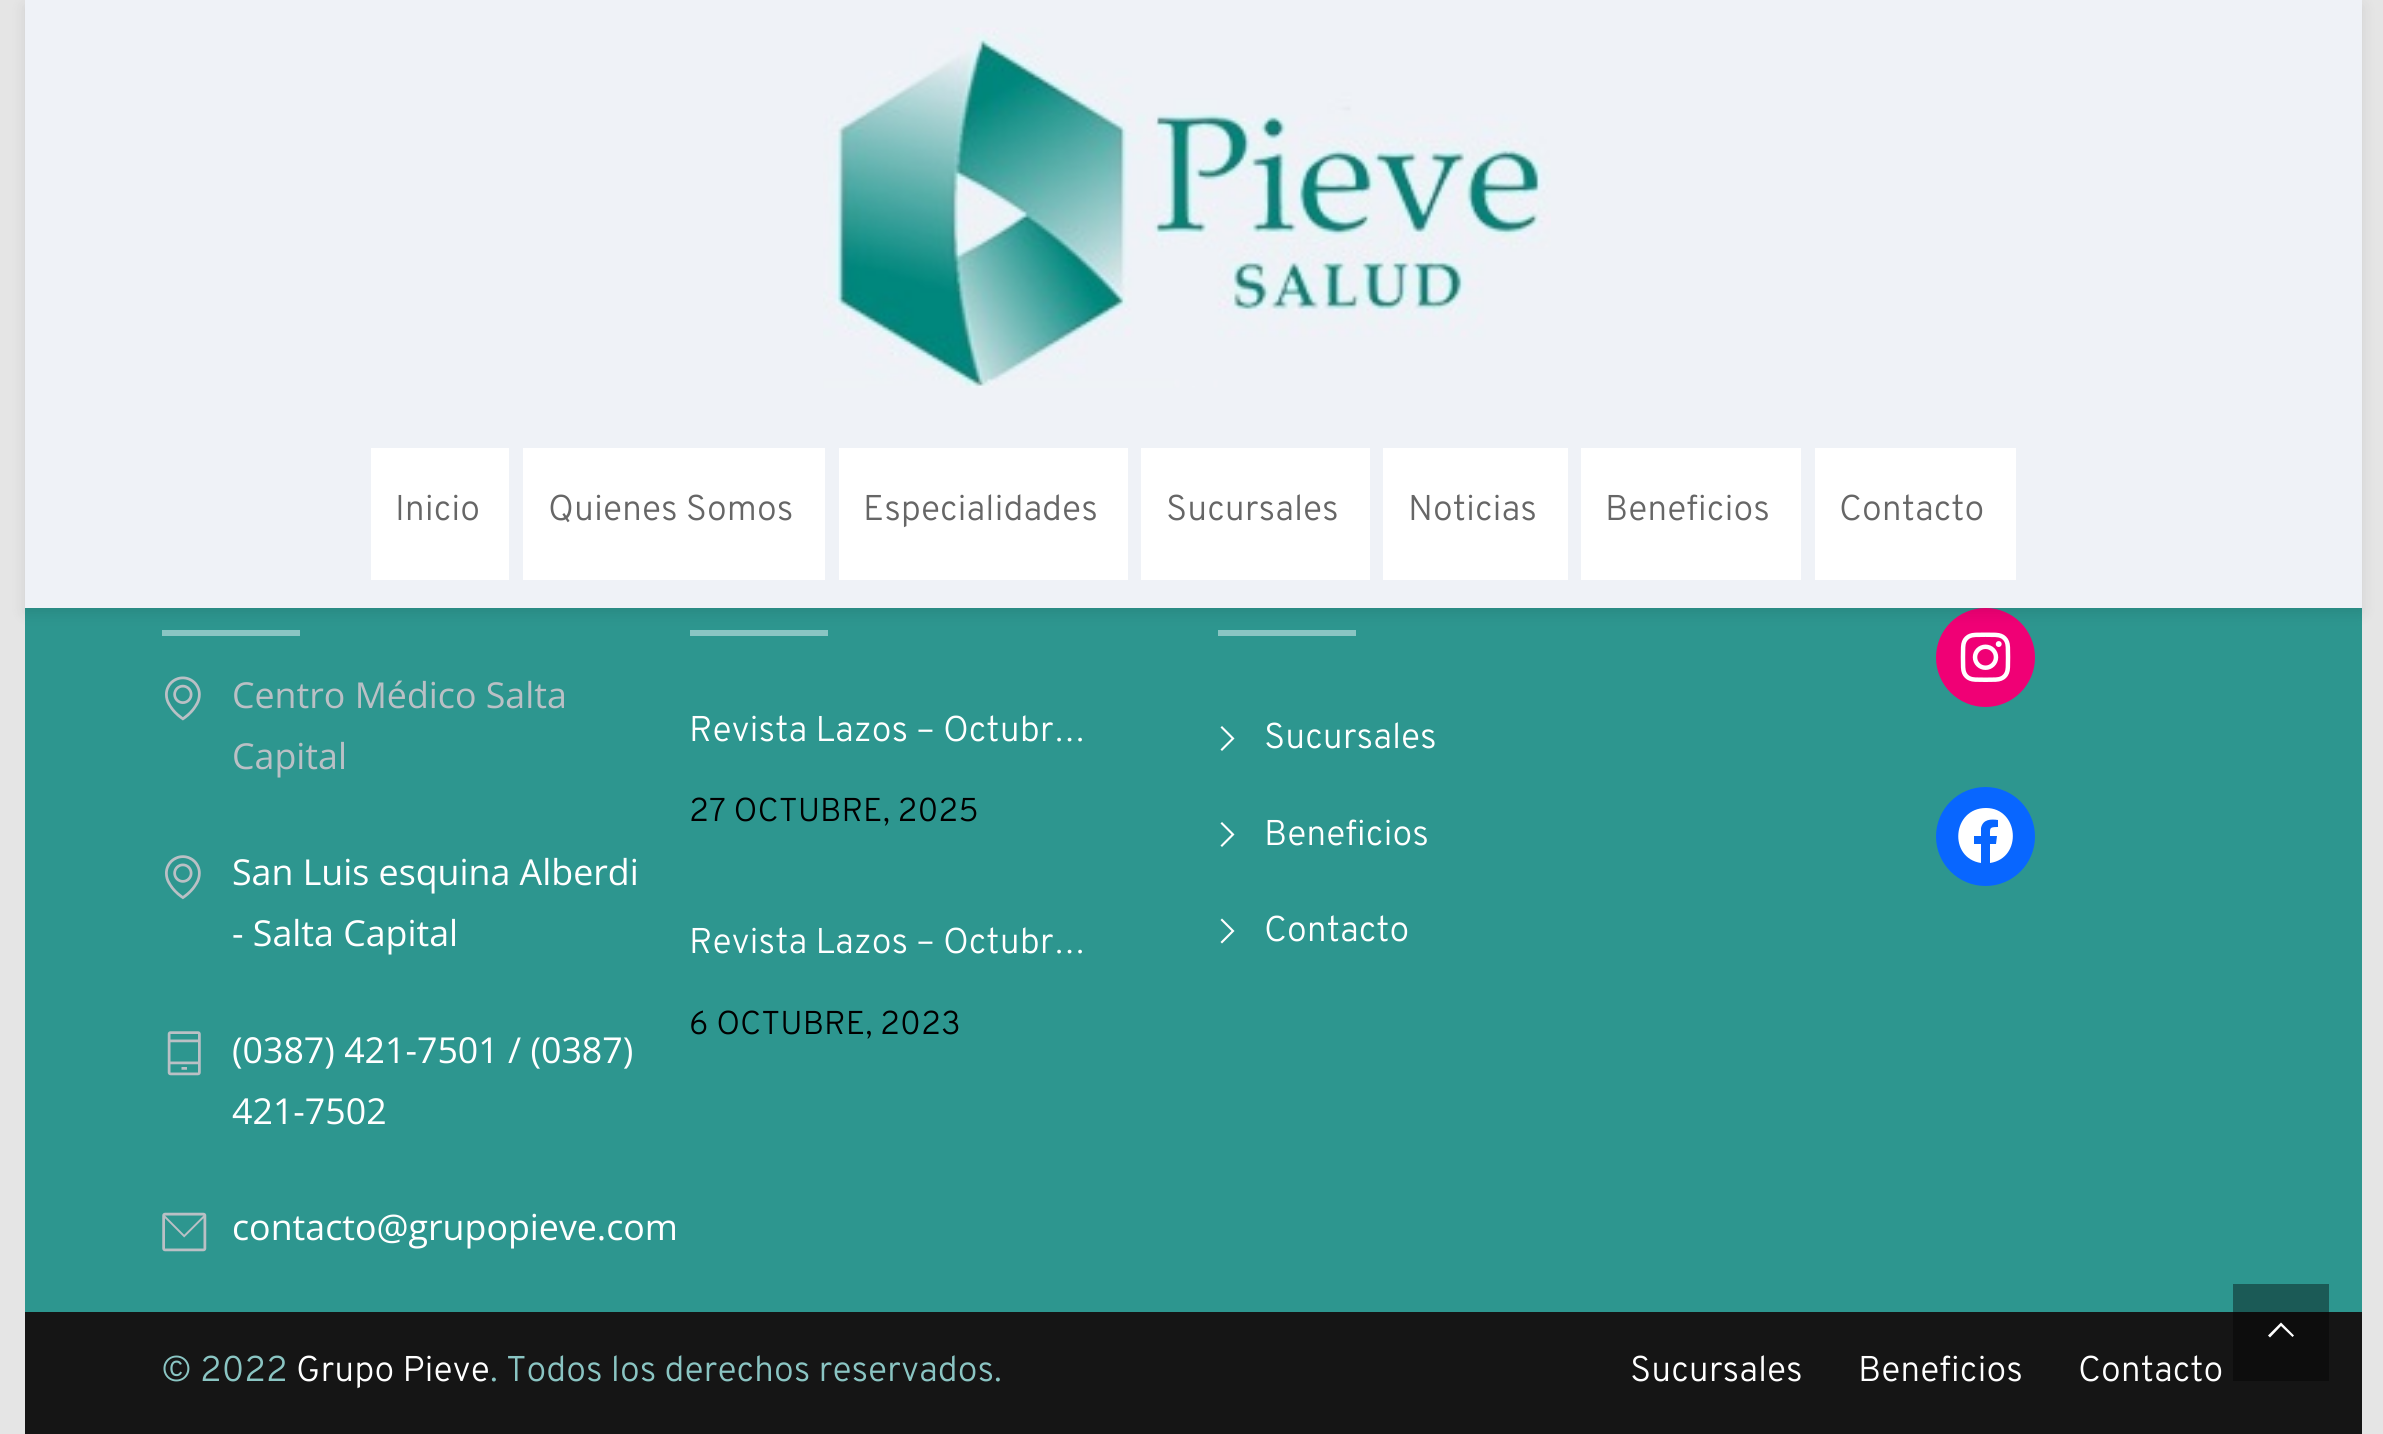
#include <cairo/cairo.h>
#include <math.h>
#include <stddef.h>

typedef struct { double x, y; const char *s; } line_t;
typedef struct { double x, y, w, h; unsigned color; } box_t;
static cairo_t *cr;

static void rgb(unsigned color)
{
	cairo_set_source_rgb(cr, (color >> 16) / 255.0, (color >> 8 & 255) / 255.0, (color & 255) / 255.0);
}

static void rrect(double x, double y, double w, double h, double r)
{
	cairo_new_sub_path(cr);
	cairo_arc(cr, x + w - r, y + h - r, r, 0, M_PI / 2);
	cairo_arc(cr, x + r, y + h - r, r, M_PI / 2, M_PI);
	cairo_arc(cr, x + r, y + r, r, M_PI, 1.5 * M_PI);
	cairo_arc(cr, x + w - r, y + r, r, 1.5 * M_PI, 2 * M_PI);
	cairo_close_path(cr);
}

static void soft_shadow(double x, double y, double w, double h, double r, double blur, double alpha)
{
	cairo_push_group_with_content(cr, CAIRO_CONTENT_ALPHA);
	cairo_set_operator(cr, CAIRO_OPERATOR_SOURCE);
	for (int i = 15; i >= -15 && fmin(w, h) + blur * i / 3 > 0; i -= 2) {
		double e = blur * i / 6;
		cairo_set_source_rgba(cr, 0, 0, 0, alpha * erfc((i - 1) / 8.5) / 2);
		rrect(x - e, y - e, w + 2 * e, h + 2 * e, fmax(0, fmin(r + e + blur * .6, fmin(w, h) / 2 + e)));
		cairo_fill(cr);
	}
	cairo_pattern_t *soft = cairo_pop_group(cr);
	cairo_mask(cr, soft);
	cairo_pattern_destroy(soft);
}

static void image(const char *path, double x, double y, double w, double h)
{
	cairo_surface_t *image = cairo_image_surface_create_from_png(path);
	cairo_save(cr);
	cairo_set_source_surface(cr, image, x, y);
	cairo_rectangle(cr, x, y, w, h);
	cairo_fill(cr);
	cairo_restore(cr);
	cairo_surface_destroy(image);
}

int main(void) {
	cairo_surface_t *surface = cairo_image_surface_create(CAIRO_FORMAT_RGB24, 2383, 1434);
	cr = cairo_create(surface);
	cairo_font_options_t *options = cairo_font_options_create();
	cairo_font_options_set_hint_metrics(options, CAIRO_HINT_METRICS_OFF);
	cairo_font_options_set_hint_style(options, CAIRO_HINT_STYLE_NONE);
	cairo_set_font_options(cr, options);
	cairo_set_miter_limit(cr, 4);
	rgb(0xe5e5e5);
	cairo_paint(cr);
	rgb(0x2d968f);
	cairo_rectangle(cr, 25, 608, 2337, 704);
	cairo_fill(cr);
	rgb(0xf00075);
	cairo_arc(cr, 1985.5, 657.5, 49.5, 0, 2 * M_PI);
	cairo_fill(cr);
	image("img/2.png", 1960, 632, 51, 50);
	{
		static const box_t items[] = {
			{162, 630, 138, 6, 0x8ac5c3},
			{690, 630, 138, 6, 0x8ac5c3},
			{1218, 630, 138, 6, 0x8ac5c3},
		};
		for (size_t i = 0; i < sizeof items / sizeof *items; i++) {
			rgb(items[i].color);
			cairo_rectangle(cr, items[i].x, items[i].y, items[i].w, items[i].h);
			cairo_fill(cr);
		}
	}
	rgb(0x000000);
	soft_shadow(25, 6, 2337, 607, 0, 7, 0.1);
	rgb(0xeff2f7);
	cairo_rectangle(cr, 25, 0, 2337, 608);
	cairo_fill(cr);
	image("img/1.png", 823, 27, 728, 361);
	{
		static const box_t items[] = {
			{371, 448, 138, 132, 0xffffff},
			{523, 448, 302, 132, 0xffffff},
			{839, 448, 289, 132, 0xffffff},
			{1141, 448, 229, 132, 0xffffff},
			{1383, 448, 185, 132, 0xffffff},
			{1581, 448, 220, 132, 0xffffff},
			{1815, 448, 201, 132, 0xffffff},
			{2233, 1284, 96, 28, 0x1b5a56},
		};
		for (size_t i = 0; i < sizeof items / sizeof *items; i++) {
			rgb(items[i].color);
			cairo_rectangle(cr, items[i].x, items[i].y, items[i].w, items[i].h);
			cairo_fill(cr);
		}
	}
	image("img/3.png", 165, 676, 36, 45);
	image("img/4.png", 165, 855, 36, 45);
	image("img/5.png", 167, 1031, 34, 45);
	image("img/6.png", 162, 1212, 45, 40);
	rgb(0xffffff);
	cairo_new_path(cr);
	cairo_move_to(cr, 1233, 740);
	cairo_line_to(cr, 1234.5, 738.5);
	cairo_line_to(cr, 1222, 726);
	cairo_line_to(cr, 1220.5, 727.5);
	cairo_line_to(cr, 1231.5, 738.5);
	cairo_line_to(cr, 1220.5, 749.5);
	cairo_line_to(cr, 1222, 751);
	cairo_close_path(cr);
	cairo_fill(cr);
	cairo_new_path(cr);
	cairo_move_to(cr, 1233, 836);
	cairo_line_to(cr, 1234.5, 834.5);
	cairo_line_to(cr, 1222, 822);
	cairo_line_to(cr, 1220.5, 823.5);
	cairo_line_to(cr, 1231.5, 834.5);
	cairo_line_to(cr, 1220.5, 845.5);
	cairo_line_to(cr, 1222, 847);
	cairo_close_path(cr);
	cairo_fill(cr);
	cairo_new_path(cr);
	cairo_move_to(cr, 1233, 932.5);
	cairo_line_to(cr, 1234.5, 931);
	cairo_line_to(cr, 1222, 918.5);
	cairo_line_to(cr, 1220.5, 920);
	cairo_line_to(cr, 1231.5, 931);
	cairo_line_to(cr, 1220.5, 942);
	cairo_line_to(cr, 1222, 943.5);
	cairo_close_path(cr);
	cairo_fill(cr);
	rgb(0x0866ff);
	cairo_arc(cr, 1985.5, 836.5, 49.5, 0, 2 * M_PI);
	cairo_fill(cr);
	rgb(0xffffff);
	cairo_new_path(cr);
	cairo_move_to(cr, 1986, 808);
	cairo_curve_to(cr, 1952, 808, 1948, 858, 1981, 863);
	cairo_line_to(cr, 1981, 844);
	cairo_line_to(cr, 1974, 844);
	cairo_line_to(cr, 1974, 836);
	cairo_line_to(cr, 1981, 836);
	cairo_line_to(cr, 1981, 828);
	cairo_curve_to(cr, 1983, 819, 1991, 819, 1998, 820);
	cairo_line_to(cr, 1998, 827);
	cairo_curve_to(cr, 1989, 827, 1990, 828, 1990, 836);
	cairo_line_to(cr, 1997, 836);
	cairo_line_to(cr, 1996, 844);
	cairo_line_to(cr, 1990, 844);
	cairo_line_to(cr, 1990, 863);
	cairo_curve_to(cr, 2023, 858, 2019, 808, 1986, 808);
	cairo_close_path(cr);
	cairo_fill(cr);
	rgb(0x151515);
	cairo_rectangle(cr, 25, 1312, 2337, 122);
	cairo_fill(cr);
	rgb(0x0d0d0d);
	cairo_rectangle(cr, 2233, 1312, 96, 69);
	cairo_fill(cr);
	rgb(0xffffff);
	cairo_new_path(cr);
	cairo_move_to(cr, 2283, 1324.5);
	cairo_line_to(cr, 2281, 1322.5);
	cairo_line_to(cr, 2268, 1335.5);
	cairo_line_to(cr, 2270, 1337.5);
	cairo_line_to(cr, 2281, 1326);
	cairo_line_to(cr, 2292.5, 1337);
	cairo_line_to(cr, 2294, 1335.5);
	cairo_close_path(cr);
	cairo_fill(cr);
	cairo_select_font_face(cr, "Overpass Light", CAIRO_FONT_SLANT_NORMAL, CAIRO_FONT_WEIGHT_NORMAL);
	cairo_set_font_size(cr, 35.75);
	rgb(0x666666);
	{
		static const line_t items[] = {
			{395, 520, "Inicio"},
			{548, 520, "Quienes Somos"},
			{863, 520, "Especialidades"},
			{1166, 520, "Sucursales"},
			{1408, 520, "Noticias"},
			{1605, 520, "Beneficios"},
			{1839, 520, "Contacto"},
		};
		for (size_t i = 0; i < sizeof items / sizeof *items; i++) {
			cairo_move_to(cr, items[i].x, items[i].y);
			cairo_show_text(cr, items[i].s);
		}
	}
	cairo_select_font_face(cr, "Open Sans", CAIRO_FONT_SLANT_NORMAL, CAIRO_FONT_WEIGHT_NORMAL);
	rgb(0xbac0c5);
	cairo_move_to(cr, 232, 708);
	cairo_show_text(cr, "Centro Médico Salta");
	cairo_move_to(cr, 232, 769);
	cairo_show_text(cr, "Capital");
	rgb(0xffffff);
	{
		static const line_t items[] = {
			{232, 885, "San Luis esquina Alberdi"},
			{232, 946, "- Salta Capital"},
			{232, 1063, "(0387) 421-7501 / (0387)"},
			{232, 1124, "421-7502"},
			{232, 1240, "contacto@grupopieve.com"},
		};
		for (size_t i = 0; i < sizeof items / sizeof *items; i++) {
			cairo_move_to(cr, items[i].x, items[i].y);
			cairo_show_text(cr, items[i].s);
		}
	}
	cairo_select_font_face(cr, "Overpass Light", CAIRO_FONT_SLANT_NORMAL, CAIRO_FONT_WEIGHT_NORMAL);
	cairo_move_to(cr, 689, 741);
	cairo_show_text(cr, "Revista Lazos – Octubr…");
	cairo_set_font_size(cr, 33);
	rgb(0x000000);
	cairo_move_to(cr, 689, 821);
	cairo_show_text(cr, "27 OCTUBRE, 2025");
	cairo_set_font_size(cr, 35.75);
	rgb(0xffffff);
	cairo_move_to(cr, 689, 953);
	cairo_show_text(cr, "Revista Lazos – Octubr…");
	cairo_set_font_size(cr, 33);
	rgb(0x000000);
	cairo_move_to(cr, 689, 1034);
	cairo_show_text(cr, "6 OCTUBRE, 2023");
	cairo_set_font_size(cr, 35.75);
	rgb(0xffffff);
	{
		static const line_t items[] = {
			{1264, 748, "Sucursales"},
			{1264, 845, "Beneficios"},
			{1264, 941, "Contacto"},
		};
		for (size_t i = 0; i < sizeof items / sizeof *items; i++) {
			cairo_move_to(cr, items[i].x, items[i].y);
			cairo_show_text(cr, items[i].s);
		}
	}
	rgb(0x8ac5c3);
	cairo_move_to(cr, 161, 1381);
	cairo_show_text(cr, "© 2022");
	rgb(0xffffff);
	cairo_move_to(cr, 296, 1381);
	cairo_show_text(cr, "Grupo Pieve");
	rgb(0x8ac5c3);
	cairo_move_to(cr, 490, 1381);
	cairo_show_text(cr, ". Todos los derechos reservados.");
	rgb(0xffffff);
	{
		static const line_t items[] = {
			{1630, 1381, "Sucursales"},
			{1858, 1381, "Beneficios"},
			{2078, 1381, "Contacto"},
		};
		for (size_t i = 0; i < sizeof items / sizeof *items; i++) {
			cairo_move_to(cr, items[i].x, items[i].y);
			cairo_show_text(cr, items[i].s);
		}
	}
	cairo_surface_write_to_png(surface, "page.png");
	cairo_font_options_destroy(options);
	cairo_destroy(cr);
	cairo_surface_destroy(surface);
	return 0;
}
